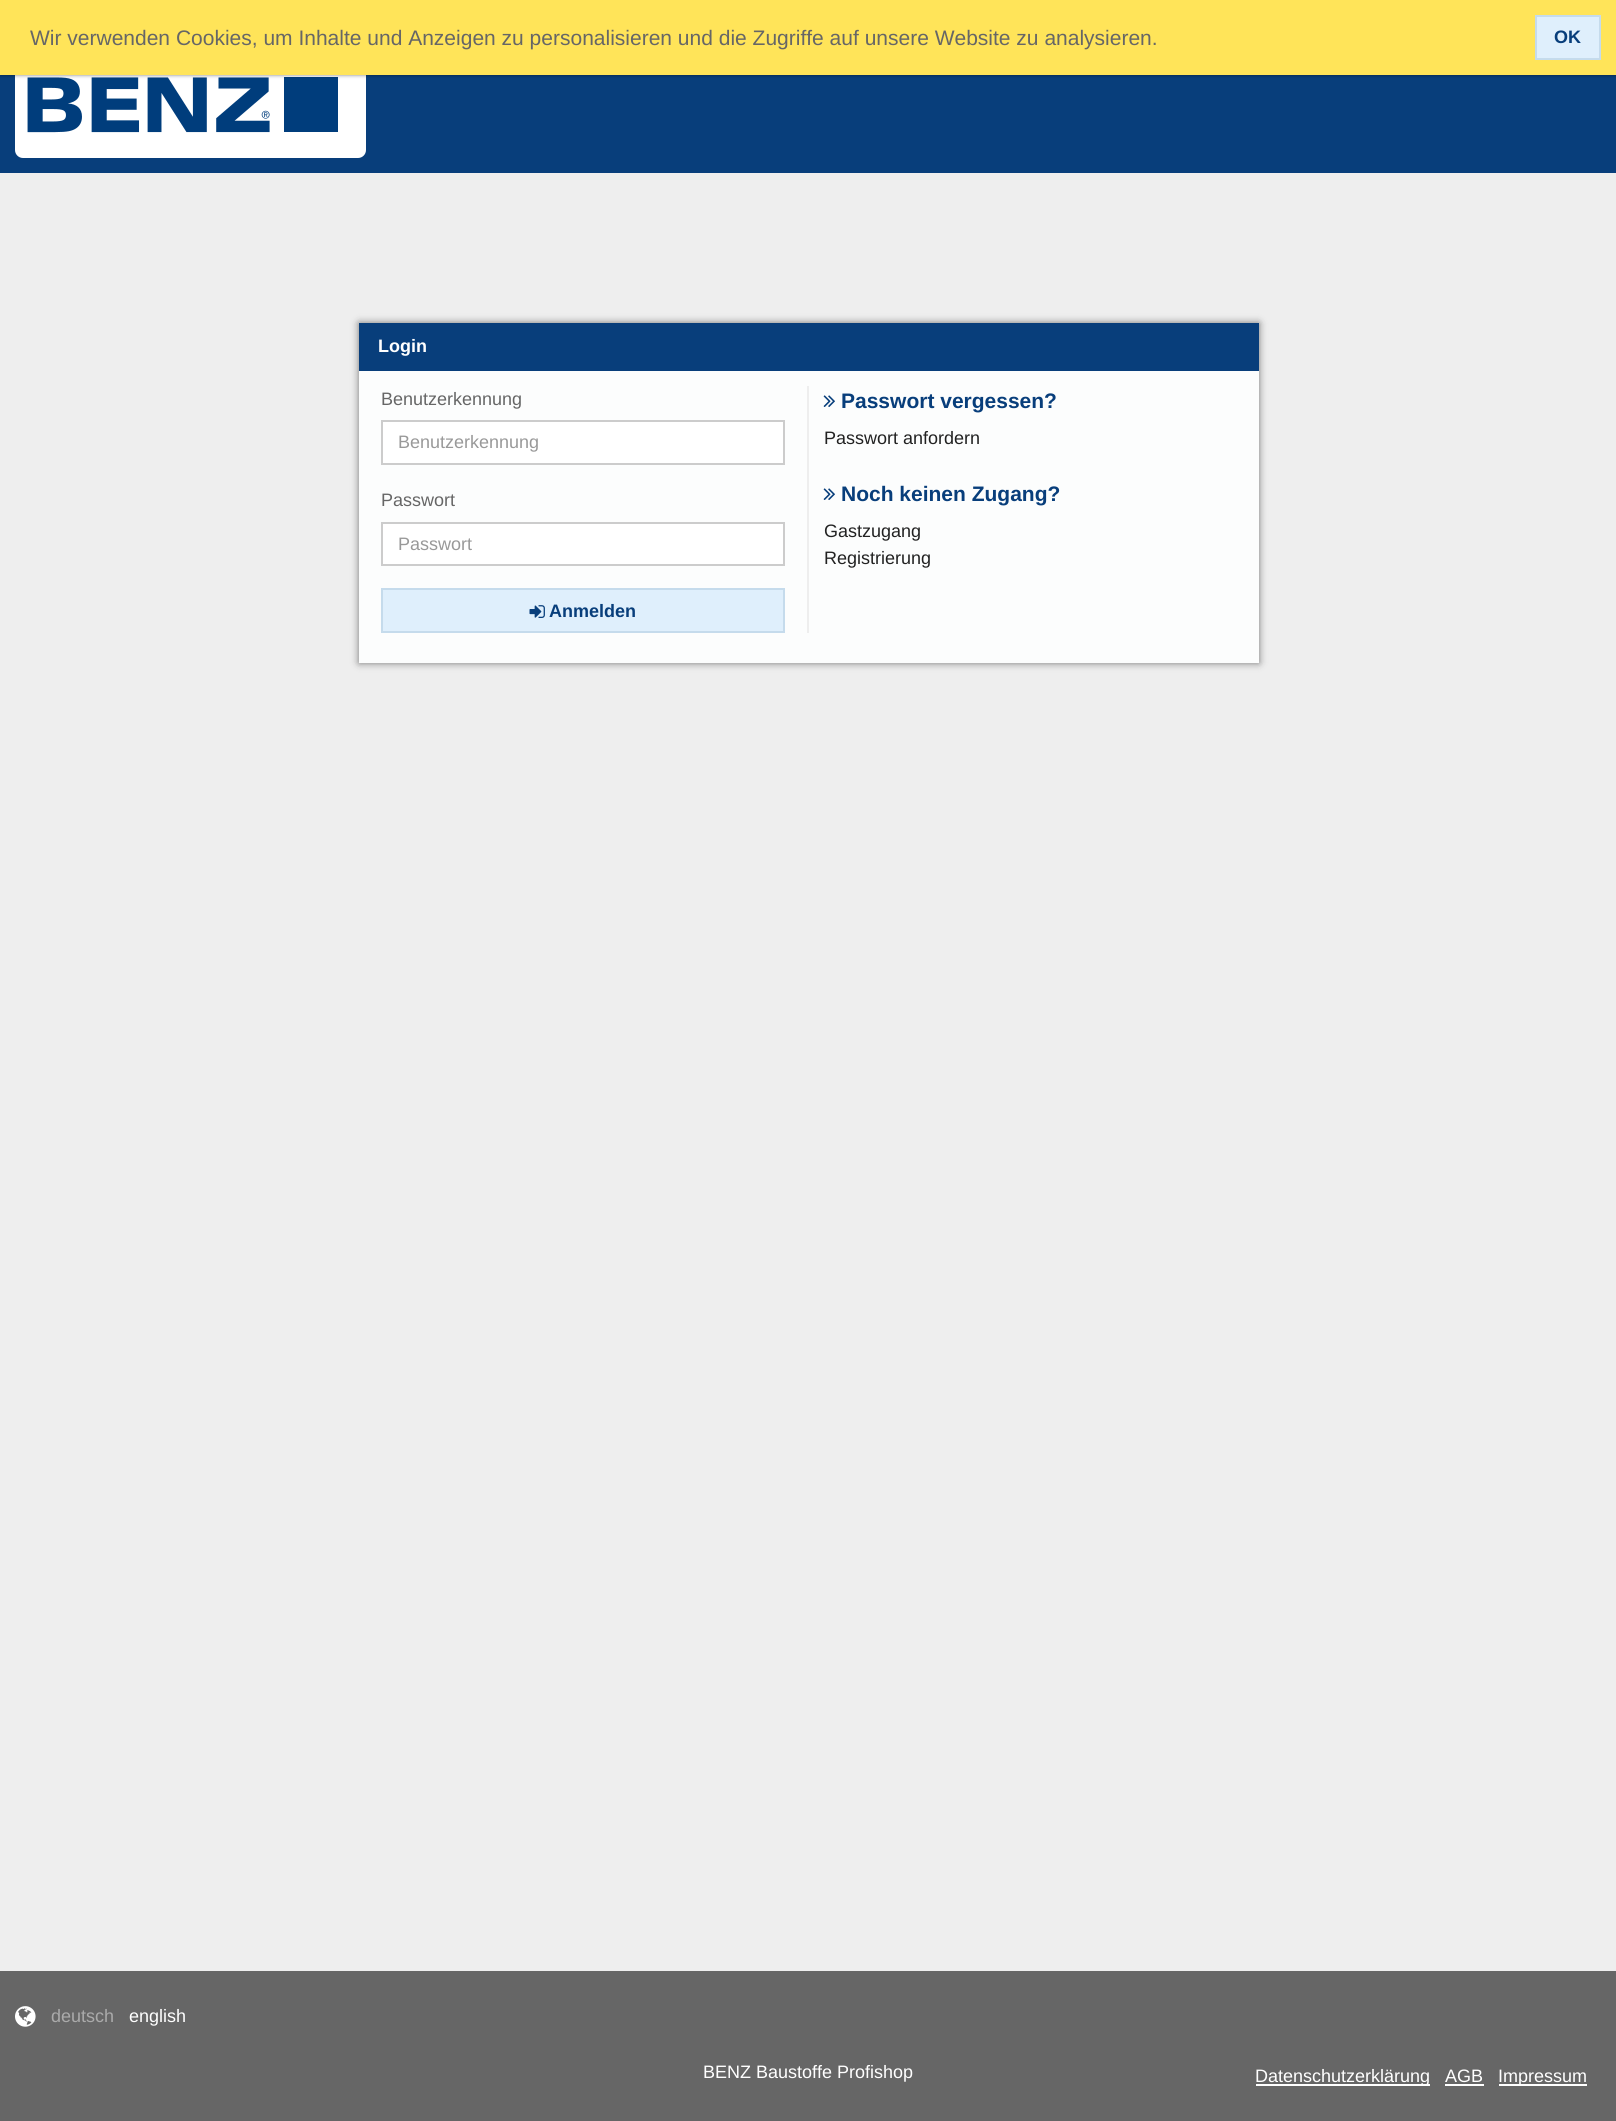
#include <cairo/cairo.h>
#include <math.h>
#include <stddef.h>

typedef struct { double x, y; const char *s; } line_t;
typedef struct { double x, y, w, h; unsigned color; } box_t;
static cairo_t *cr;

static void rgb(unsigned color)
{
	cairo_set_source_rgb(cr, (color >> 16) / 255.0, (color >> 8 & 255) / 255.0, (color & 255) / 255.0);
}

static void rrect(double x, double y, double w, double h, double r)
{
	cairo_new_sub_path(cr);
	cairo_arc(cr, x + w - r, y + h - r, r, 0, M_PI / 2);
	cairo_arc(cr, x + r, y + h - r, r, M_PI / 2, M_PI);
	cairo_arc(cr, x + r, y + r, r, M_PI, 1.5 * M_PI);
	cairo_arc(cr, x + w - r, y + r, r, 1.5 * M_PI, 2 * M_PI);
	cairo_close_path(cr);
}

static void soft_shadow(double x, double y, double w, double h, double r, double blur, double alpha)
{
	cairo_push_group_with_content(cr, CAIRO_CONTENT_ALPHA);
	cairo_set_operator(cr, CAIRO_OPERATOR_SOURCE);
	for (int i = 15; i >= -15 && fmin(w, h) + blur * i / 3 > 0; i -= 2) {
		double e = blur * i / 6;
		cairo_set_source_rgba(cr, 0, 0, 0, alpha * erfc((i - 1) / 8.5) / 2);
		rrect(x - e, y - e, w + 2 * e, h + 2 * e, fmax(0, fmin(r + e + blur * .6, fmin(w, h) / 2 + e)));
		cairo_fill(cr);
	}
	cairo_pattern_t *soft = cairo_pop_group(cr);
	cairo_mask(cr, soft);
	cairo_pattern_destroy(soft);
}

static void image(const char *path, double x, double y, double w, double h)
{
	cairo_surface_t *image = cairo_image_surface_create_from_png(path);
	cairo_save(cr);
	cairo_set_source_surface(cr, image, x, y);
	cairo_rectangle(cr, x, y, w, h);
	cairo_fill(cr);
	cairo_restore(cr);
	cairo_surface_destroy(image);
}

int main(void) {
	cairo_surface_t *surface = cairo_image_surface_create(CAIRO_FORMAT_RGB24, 1616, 2121);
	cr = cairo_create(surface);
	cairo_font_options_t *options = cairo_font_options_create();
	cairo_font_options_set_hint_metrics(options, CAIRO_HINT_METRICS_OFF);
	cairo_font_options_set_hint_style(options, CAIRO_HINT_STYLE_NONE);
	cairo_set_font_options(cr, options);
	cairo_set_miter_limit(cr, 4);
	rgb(0xeeeeee);
	cairo_paint(cr);
	rgb(0x083e7b);
	cairo_rectangle(cr, 0, 75, 1616, 98);
	cairo_fill(cr);
	rgb(0xffffff);
	rrect(15, 53, 351, 105, 8);
	cairo_fill(cr);
	image("img/3.png", 27, 77, 311, 56);
	rgb(0x000000);
	soft_shadow(0, 0, 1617, 75, 0, 2, 0.5);
	rgb(0xffe459);
	cairo_rectangle(cr, 0, 0, 1616, 75);
	cairo_fill(cr);
	rgb(0xdfeffc);
	cairo_rectangle(cr, 1536, 16, 64, 43);
	cairo_fill_preserve(cr);
	rgb(0xc5dbec);
	cairo_stroke(cr);
	rgb(0x000000);
	soft_shadow(359, 323, 900, 340, 0, 4, 0.5);
	{
		static const box_t items[] = {
			{359, 371, 900, 292, 0xfcfdfd},
			{359, 323, 900, 48, 0x083e7b},
			{807, 386, 2, 247, 0xeeeeee},
		};
		for (size_t i = 0; i < sizeof items / sizeof *items; i++) {
			rgb(items[i].color);
			cairo_rectangle(cr, items[i].x, items[i].y, items[i].w, items[i].h);
			cairo_fill(cr);
		}
	}
	rgb(0xffffff);
	cairo_rectangle(cr, 382, 421, 402, 43);
	cairo_fill_preserve(cr);
	rgb(0xcccccc);
	cairo_stroke(cr);
	rgb(0xffffff);
	cairo_rectangle(cr, 382, 523, 402, 42);
	cairo_fill_preserve(cr);
	rgb(0xcccccc);
	cairo_stroke(cr);
	rgb(0xdfeffc);
	cairo_rectangle(cr, 382, 589, 402, 43);
	cairo_fill_preserve(cr);
	rgb(0xc5dbec);
	cairo_stroke(cr);
	image("img/1.png", 529, 605, 16, 13);
	image("img/2.png", 823, 395, 12, 12);
	image("img/2.png", 823, 488, 12, 12);
	rgb(0x666666);
	cairo_rectangle(cr, 0, 1971, 1616, 150);
	cairo_fill(cr);
	image("img/4.png", 15, 2006, 21, 21);
	{
		static const box_t items[] = {
			{1256, 2084, 174, 2, 0xffffff},
			{1445, 2084, 39, 2, 0xffffff},
			{1499, 2084, 88, 2, 0xffffff},
		};
		for (size_t i = 0; i < sizeof items / sizeof *items; i++) {
			rgb(items[i].color);
			cairo_rectangle(cr, items[i].x, items[i].y, items[i].w, items[i].h);
			cairo_fill(cr);
		}
	}
	cairo_select_font_face(cr, "Liberation Sans", CAIRO_FONT_SLANT_NORMAL, CAIRO_FONT_WEIGHT_NORMAL);
	cairo_set_font_size(cr, 21);
	rgb(0x666666);
	cairo_move_to(cr, 30, 45);
	cairo_show_text(cr, "Wir verwenden Cookies, um Inhalte und Anzeigen zu personalisieren und die Zugriffe auf unsere Website zu analysieren.");
	cairo_select_font_face(cr, "Liberation Sans", CAIRO_FONT_SLANT_NORMAL, CAIRO_FONT_WEIGHT_BOLD);
	cairo_set_font_size(cr, 18);
	rgb(0x083e7b);
	cairo_move_to(cr, 1554, 43);
	cairo_show_text(cr, "OK");
	rgb(0xffffff);
	cairo_move_to(cr, 378, 352);
	cairo_show_text(cr, "Login");
	cairo_select_font_face(cr, "Liberation Sans", CAIRO_FONT_SLANT_NORMAL, CAIRO_FONT_WEIGHT_NORMAL);
	rgb(0x666666);
	cairo_move_to(cr, 381, 405);
	cairo_show_text(cr, "Benutzerkennung");
	rgb(0x999999);
	cairo_move_to(cr, 398, 448);
	cairo_show_text(cr, "Benutzerkennung");
	rgb(0x666666);
	cairo_move_to(cr, 381, 506);
	cairo_show_text(cr, "Passwort");
	rgb(0x999999);
	cairo_move_to(cr, 398, 550);
	cairo_show_text(cr, "Passwort");
	cairo_select_font_face(cr, "Liberation Sans", CAIRO_FONT_SLANT_NORMAL, CAIRO_FONT_WEIGHT_BOLD);
	rgb(0x083e7b);
	cairo_move_to(cr, 549, 617);
	cairo_show_text(cr, "Anmelden");
	cairo_set_font_size(cr, 21);
	cairo_move_to(cr, 841, 408);
	cairo_show_text(cr, "Passwort vergessen?");
	cairo_select_font_face(cr, "Liberation Sans", CAIRO_FONT_SLANT_NORMAL, CAIRO_FONT_WEIGHT_NORMAL);
	cairo_set_font_size(cr, 18);
	rgb(0x222222);
	cairo_move_to(cr, 824, 444);
	cairo_show_text(cr, "Passwort anfordern");
	cairo_select_font_face(cr, "Liberation Sans", CAIRO_FONT_SLANT_NORMAL, CAIRO_FONT_WEIGHT_BOLD);
	cairo_set_font_size(cr, 21);
	rgb(0x083e7b);
	cairo_move_to(cr, 841, 501);
	cairo_show_text(cr, "Noch keinen Zugang?");
	cairo_select_font_face(cr, "Liberation Sans", CAIRO_FONT_SLANT_NORMAL, CAIRO_FONT_WEIGHT_NORMAL);
	cairo_set_font_size(cr, 18);
	rgb(0x222222);
	cairo_move_to(cr, 824, 537);
	cairo_show_text(cr, "Gastzugang");
	cairo_move_to(cr, 824, 564);
	cairo_show_text(cr, "Registrierung");
	rgb(0xaaaaaa);
	cairo_move_to(cr, 51, 2022);
	cairo_show_text(cr, "deutsch");
	rgb(0xffffff);
	{
		static const line_t items[] = {
			{129, 2022, "english"},
			{703, 2078, "BENZ Baustoffe Profishop"},
			{1255, 2082, "Datenschutzerklärung"},
			{1445, 2082, "AGB"},
			{1498, 2082, "Impressum"},
		};
		for (size_t i = 0; i < sizeof items / sizeof *items; i++) {
			cairo_move_to(cr, items[i].x, items[i].y);
			cairo_show_text(cr, items[i].s);
		}
	}
	cairo_surface_write_to_png(surface, "page.png");
	cairo_font_options_destroy(options);
	cairo_destroy(cr);
	cairo_surface_destroy(surface);
	return 0;
}
